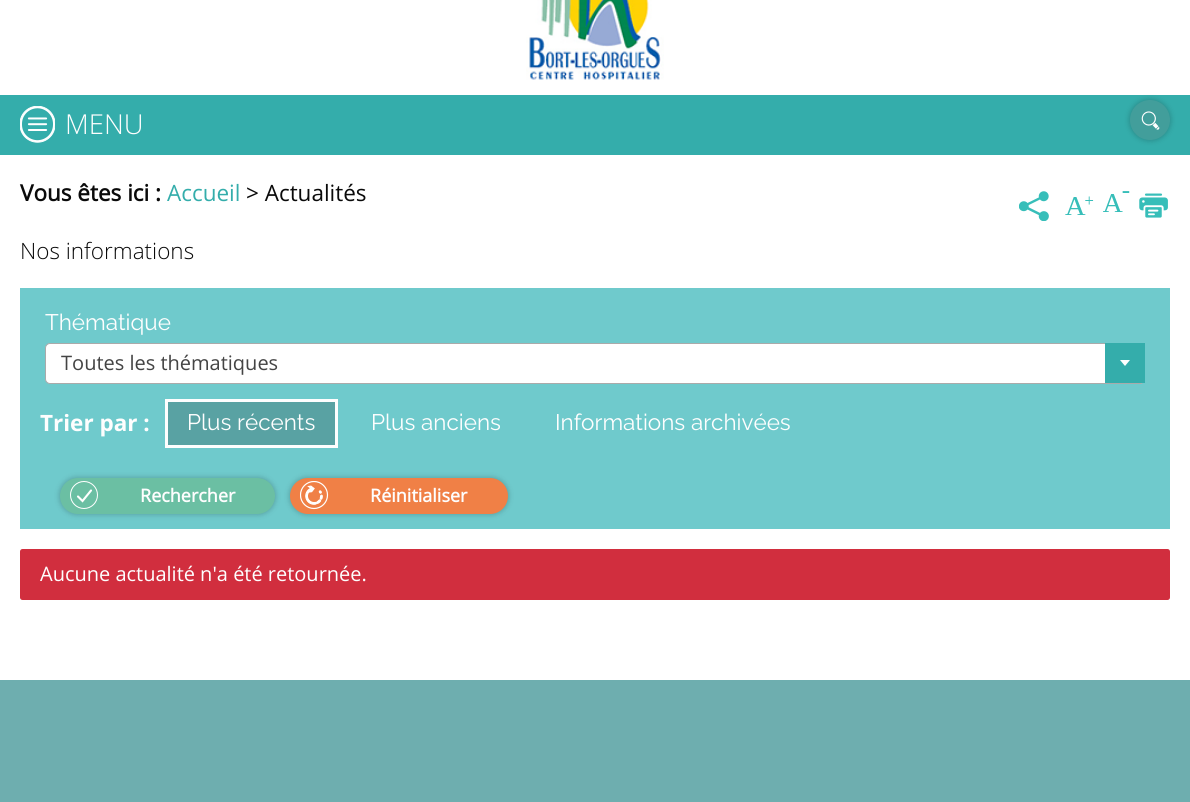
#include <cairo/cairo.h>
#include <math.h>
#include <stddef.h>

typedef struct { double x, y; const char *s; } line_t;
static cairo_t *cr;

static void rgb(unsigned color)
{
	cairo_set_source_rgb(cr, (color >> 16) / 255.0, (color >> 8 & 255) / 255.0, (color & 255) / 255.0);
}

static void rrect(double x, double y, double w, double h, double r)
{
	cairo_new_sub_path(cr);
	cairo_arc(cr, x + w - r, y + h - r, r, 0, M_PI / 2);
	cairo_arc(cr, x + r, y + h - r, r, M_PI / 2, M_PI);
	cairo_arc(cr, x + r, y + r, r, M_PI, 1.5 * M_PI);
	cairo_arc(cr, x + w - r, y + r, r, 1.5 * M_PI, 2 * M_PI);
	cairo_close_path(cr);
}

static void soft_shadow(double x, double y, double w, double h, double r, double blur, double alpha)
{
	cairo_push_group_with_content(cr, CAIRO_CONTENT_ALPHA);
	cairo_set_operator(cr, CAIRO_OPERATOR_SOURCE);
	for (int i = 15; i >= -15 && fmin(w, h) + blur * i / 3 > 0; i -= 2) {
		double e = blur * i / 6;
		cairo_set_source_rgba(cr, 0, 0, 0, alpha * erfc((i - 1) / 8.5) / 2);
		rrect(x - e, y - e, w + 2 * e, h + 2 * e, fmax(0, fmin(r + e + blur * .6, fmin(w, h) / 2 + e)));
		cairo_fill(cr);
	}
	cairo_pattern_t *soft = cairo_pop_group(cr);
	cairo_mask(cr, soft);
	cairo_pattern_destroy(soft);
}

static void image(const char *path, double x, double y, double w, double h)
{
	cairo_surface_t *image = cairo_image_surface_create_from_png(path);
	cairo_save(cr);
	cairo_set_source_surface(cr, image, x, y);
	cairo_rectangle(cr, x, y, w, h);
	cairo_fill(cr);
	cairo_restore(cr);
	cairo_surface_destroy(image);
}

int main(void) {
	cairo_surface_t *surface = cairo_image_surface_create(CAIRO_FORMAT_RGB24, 1190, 802);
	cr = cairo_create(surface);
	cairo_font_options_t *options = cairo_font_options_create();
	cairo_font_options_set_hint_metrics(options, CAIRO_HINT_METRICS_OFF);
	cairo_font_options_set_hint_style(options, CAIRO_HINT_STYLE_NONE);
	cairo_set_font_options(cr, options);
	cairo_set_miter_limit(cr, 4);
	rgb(0xffffff);
	cairo_paint(cr);
	image("img/1.png", 526, 0, 138, 80);
	rgb(0x34adab);
	cairo_rectangle(cr, 0, 95, 1190, 60);
	cairo_fill(cr);
	image("img/2.png", 20, 106, 35, 37);
	rgb(0x000000);
	soft_shadow(1130, 100, 40, 40, 20, 3, 0.25);
	rgb(0x429e9b);
	cairo_arc(cr, 1150, 120, 20, 0, 2 * M_PI);
	cairo_fill(cr);
	image("img/3.png", 1141, 111, 19, 19);
	image("img/4.png", 1019, 191, 30, 30);
	image("img/5.png", 1065, 196, 29, 19);
	image("img/6.png", 1103, 191, 27, 21);
	image("img/7.png", 1139, 193, 29, 25);
	rgb(0x6fcacc);
	cairo_rectangle(cr, 20, 288, 1150, 241);
	cairo_fill(cr);
	rgb(0xffffff);
	rrect(45.5, 343.5, 1099, 40, 4.5);
	cairo_fill_preserve(cr);
	rgb(0xaaaaaa);
	cairo_set_line_width(cr, 1);
	cairo_stroke(cr);
	rgb(0x34adab);
	cairo_rectangle(cr, 1105, 343, 40, 40);
	cairo_fill(cr);
	rgb(0xfefefe);
	cairo_new_path(cr);
	cairo_move_to(cr, 1120, 360);
	cairo_line_to(cr, 1130, 360);
	cairo_line_to(cr, 1125, 366);
	cairo_close_path(cr);
	cairo_fill(cr);
	rgb(0x59a2a3);
	cairo_rectangle(cr, 166.5, 400.5, 170, 46);
	cairo_fill_preserve(cr);
	rgb(0xfefefe);
	cairo_set_line_width(cr, 3);
	cairo_stroke(cr);
	rgb(0x000000);
	soft_shadow(60, 478, 215, 36, 18, 3, 0.25);
	rgb(0x6bbfa3);
	rrect(60, 478, 215, 36, 18);
	cairo_fill(cr);
	cairo_new_path(cr);
	cairo_move_to(cr, 78, 496.5);
	cairo_line_to(cr, 82.5, 501);
	cairo_line_to(cr, 91, 490.5);
	rgb(0xffffff);
	cairo_set_line_width(cr, 2.1);
	cairo_set_line_cap(cr, CAIRO_LINE_CAP_ROUND);
	cairo_stroke(cr);
	cairo_arc(cr, 84, 495, 13.5, 0, 2 * M_PI);
	cairo_set_line_width(cr, 1);
	cairo_set_line_cap(cr, CAIRO_LINE_CAP_BUTT);
	cairo_stroke(cr);
	rgb(0x000000);
	soft_shadow(290, 478, 218, 36, 18, 3, 0.25);
	rgb(0xf08046);
	rrect(290, 478, 218, 36, 18);
	cairo_fill(cr);
	image("img/8.png", 300, 481, 29, 29);
	rgb(0xd12e3e);
	rrect(20, 549, 1150, 51, 2.5);
	cairo_fill(cr);
	rgb(0x6eaeaf);
	cairo_rectangle(cr, 0, 680, 1190, 122);
	cairo_fill(cr);
	cairo_select_font_face(cr, "Open Sans Light", CAIRO_FONT_SLANT_NORMAL, CAIRO_FONT_WEIGHT_NORMAL);
	cairo_set_font_size(cr, 27.5);
	rgb(0xfefefe);
	cairo_move_to(cr, 65, 134);
	cairo_show_text(cr, "MENU");
	cairo_select_font_face(cr, "Open Sans", CAIRO_FONT_SLANT_NORMAL, CAIRO_FONT_WEIGHT_BOLD);
	cairo_set_font_size(cr, 22.5);
	rgb(0x0a0a0a);
	cairo_move_to(cr, 20, 201);
	cairo_show_text(cr, "Vous êtes ici :");
	cairo_select_font_face(cr, "Open Sans", CAIRO_FONT_SLANT_NORMAL, CAIRO_FONT_WEIGHT_NORMAL);
	rgb(0x34adab);
	cairo_move_to(cr, 167, 201);
	cairo_show_text(cr, "Accueil");
	rgb(0x0a0a0a);
	cairo_move_to(cr, 246, 201);
	cairo_show_text(cr, "> Actualités");
	cairo_select_font_face(cr, "Open Sans Light", CAIRO_FONT_SLANT_NORMAL, CAIRO_FONT_WEIGHT_NORMAL);
	cairo_move_to(cr, 20, 259);
	cairo_show_text(cr, "Nos informations");
	cairo_select_font_face(cr, "Raleway Thin", CAIRO_FONT_SLANT_NORMAL, CAIRO_FONT_WEIGHT_NORMAL);
	rgb(0xfefefe);
	cairo_move_to(cr, 45, 330);
	cairo_show_text(cr, "Thématique");
	cairo_select_font_face(cr, "Open Sans", CAIRO_FONT_SLANT_NORMAL, CAIRO_FONT_WEIGHT_NORMAL);
	cairo_set_font_size(cr, 20);
	rgb(0x444444);
	cairo_move_to(cr, 61, 370);
	cairo_show_text(cr, "Toutes les thématiques");
	cairo_select_font_face(cr, "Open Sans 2", CAIRO_FONT_SLANT_NORMAL, CAIRO_FONT_WEIGHT_BOLD);
	cairo_set_font_size(cr, 22.5);
	rgb(0xfefefe);
	cairo_move_to(cr, 40, 431);
	cairo_show_text(cr, "Trier par :");
	cairo_select_font_face(cr, "Raleway Thin", CAIRO_FONT_SLANT_NORMAL, CAIRO_FONT_WEIGHT_NORMAL);
	{
		static const line_t items[] = {
			{187, 430, "Plus récents"},
			{371, 430, "Plus anciens"},
			{555, 430, "Informations archivées"},
		};
		for (size_t i = 0; i < sizeof items / sizeof *items; i++) {
			cairo_move_to(cr, items[i].x, items[i].y);
			cairo_show_text(cr, items[i].s);
		}
	}
	cairo_select_font_face(cr, "Open Sans", CAIRO_FONT_SLANT_NORMAL, CAIRO_FONT_WEIGHT_BOLD);
	cairo_set_font_size(cr, 18);
	cairo_move_to(cr, 140, 502);
	cairo_show_text(cr, "Rechercher");
	cairo_move_to(cr, 370, 502);
	cairo_show_text(cr, "Réinitialiser");
	cairo_select_font_face(cr, "Open Sans", CAIRO_FONT_SLANT_NORMAL, CAIRO_FONT_WEIGHT_NORMAL);
	cairo_set_font_size(cr, 20);
	cairo_move_to(cr, 40, 581);
	cairo_show_text(cr, "Aucune actualité n'a été retournée.");
	cairo_surface_write_to_png(surface, "page.png");
	cairo_font_options_destroy(options);
	cairo_destroy(cr);
	cairo_surface_destroy(surface);
	return 0;
}
